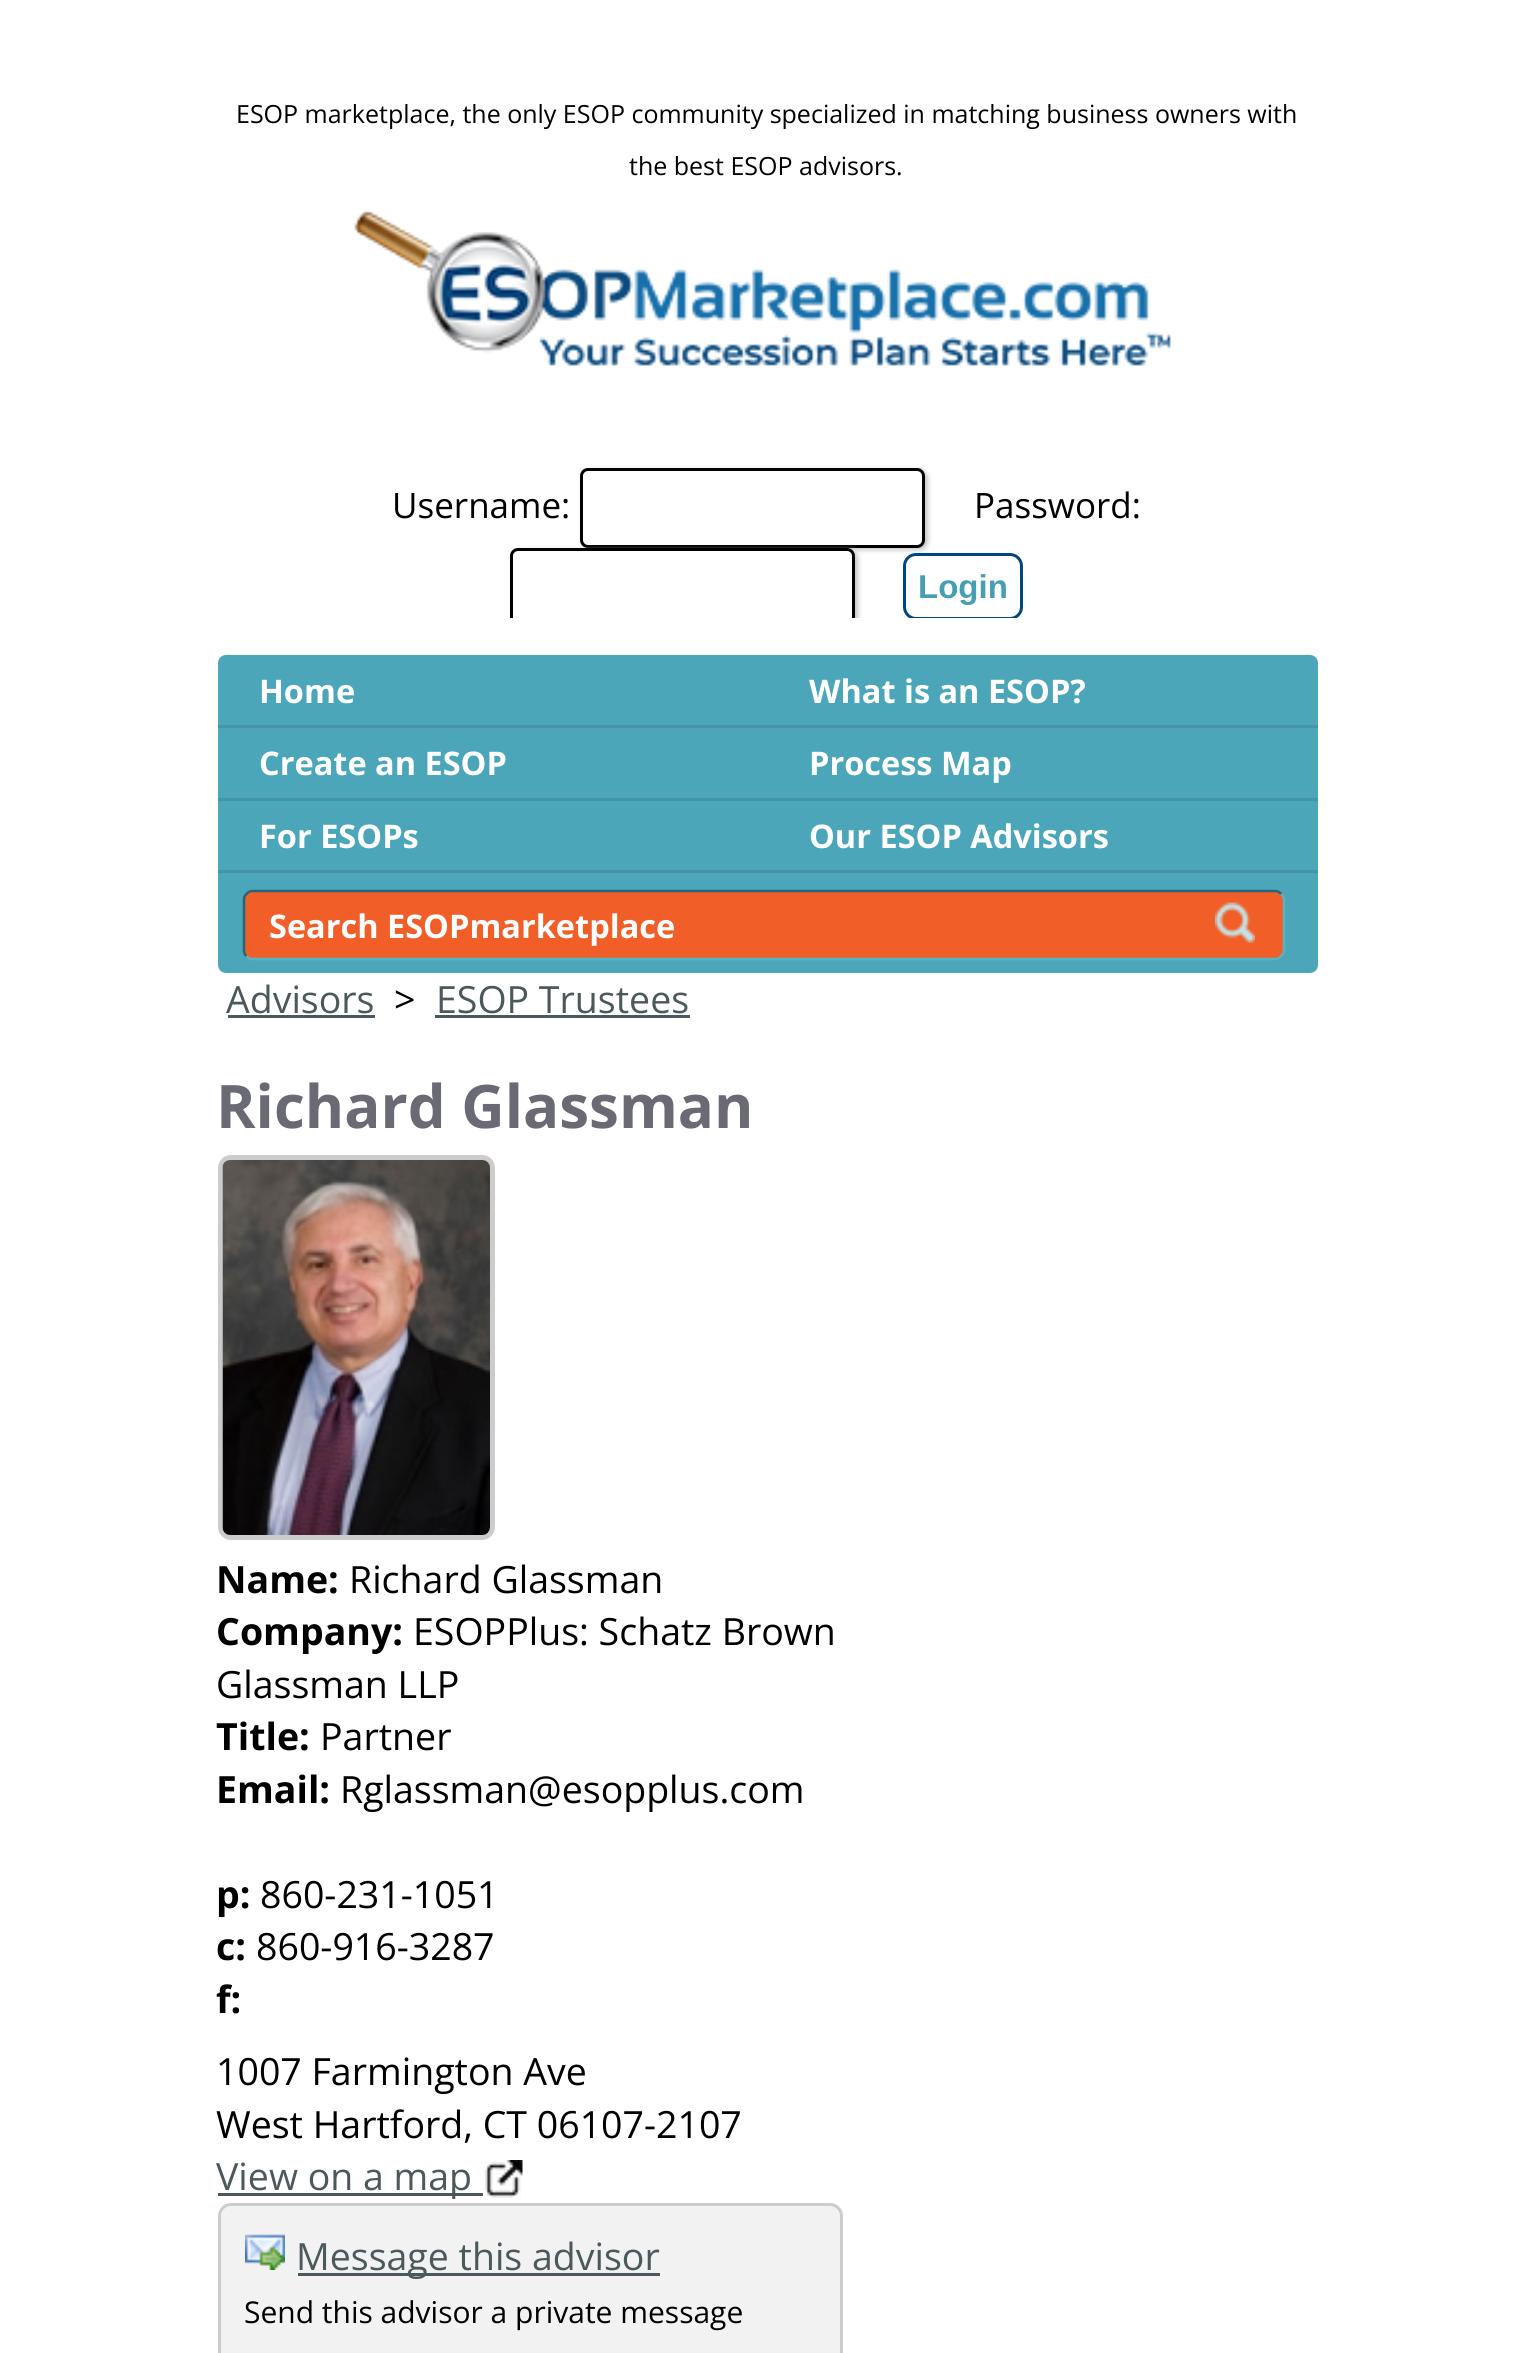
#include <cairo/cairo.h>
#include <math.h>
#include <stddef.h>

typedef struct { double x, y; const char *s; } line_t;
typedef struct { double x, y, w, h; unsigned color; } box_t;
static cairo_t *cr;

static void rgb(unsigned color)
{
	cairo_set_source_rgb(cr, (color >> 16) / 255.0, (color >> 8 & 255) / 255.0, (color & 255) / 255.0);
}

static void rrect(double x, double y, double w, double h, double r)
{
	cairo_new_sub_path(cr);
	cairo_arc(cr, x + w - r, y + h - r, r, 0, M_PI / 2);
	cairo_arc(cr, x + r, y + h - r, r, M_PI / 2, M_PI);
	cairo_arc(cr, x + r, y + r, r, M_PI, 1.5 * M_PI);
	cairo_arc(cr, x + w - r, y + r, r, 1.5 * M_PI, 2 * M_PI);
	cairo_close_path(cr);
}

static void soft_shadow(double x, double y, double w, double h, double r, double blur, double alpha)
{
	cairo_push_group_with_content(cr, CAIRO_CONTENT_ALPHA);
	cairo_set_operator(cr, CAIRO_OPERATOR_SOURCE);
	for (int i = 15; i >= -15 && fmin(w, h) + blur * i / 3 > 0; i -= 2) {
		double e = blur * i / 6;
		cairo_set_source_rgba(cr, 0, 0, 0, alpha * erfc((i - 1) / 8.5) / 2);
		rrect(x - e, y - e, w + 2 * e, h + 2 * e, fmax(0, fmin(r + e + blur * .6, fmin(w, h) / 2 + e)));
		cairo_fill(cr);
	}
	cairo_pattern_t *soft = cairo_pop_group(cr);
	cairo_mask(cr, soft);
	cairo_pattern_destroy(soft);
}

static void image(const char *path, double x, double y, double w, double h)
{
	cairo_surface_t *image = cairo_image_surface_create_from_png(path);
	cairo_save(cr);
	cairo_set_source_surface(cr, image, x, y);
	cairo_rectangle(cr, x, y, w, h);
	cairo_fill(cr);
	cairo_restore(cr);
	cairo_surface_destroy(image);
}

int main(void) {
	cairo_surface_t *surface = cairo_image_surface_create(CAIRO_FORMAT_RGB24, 1531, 2353);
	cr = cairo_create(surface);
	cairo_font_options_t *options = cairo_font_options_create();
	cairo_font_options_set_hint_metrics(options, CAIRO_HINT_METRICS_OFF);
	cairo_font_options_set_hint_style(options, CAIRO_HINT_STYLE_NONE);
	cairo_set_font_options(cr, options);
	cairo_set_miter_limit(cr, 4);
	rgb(0xffffff);
	cairo_paint(cr);
	image("img/1.png", 354, 209, 817, 157);
	rgb(0xc4c4c4);
	soft_shadow(583, 470, 345, 80, 8, 2.5, 1);
	rgb(0xffffff);
	rrect(581.5, 469.5, 342, 77, 6.5);
	cairo_fill_preserve(cr);
	rgb(0x000000);
	cairo_set_line_width(cr, 3);
	cairo_stroke(cr);
	cairo_save(cr);
	cairo_rectangle(cr, 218, 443, 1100, 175);
	cairo_clip(cr);
	rgb(0xc4c4c4);
	soft_shadow(513, 550, 345, 80, 8, 2.5, 1);
	cairo_restore(cr);
	rgb(0xffffff);
	cairo_new_path(cr);
	cairo_move_to(cr, 518, 548);
	cairo_line_to(cr, 847, 548);
	cairo_curve_to(cr, 851.5, 548, 855, 551.5, 855, 556);
	cairo_line_to(cr, 855, 618);
	cairo_line_to(cr, 510, 618);
	cairo_line_to(cr, 510, 556);
	cairo_curve_to(cr, 510, 551.5, 513.5, 548, 518, 548);
	cairo_close_path(cr);
	cairo_fill(cr);
	cairo_save(cr);
	cairo_rectangle(cr, 218, 443, 1100, 175);
	cairo_clip(cr);
	rrect(511.5, 549.5, 342, 77, 6.5);
	rgb(0x000000);
	cairo_stroke(cr);
	rgb(0xffffff);
	rrect(904.5, 554.5, 117, 64, 11.5);
	cairo_fill_preserve(cr);
	rgb(0x00467f);
	cairo_stroke(cr);
	cairo_restore(cr);
	rgb(0x4ba6b9);
	rrect(218, 655, 1100, 318, 8);
	cairo_fill(cr);
	{
		static const box_t items[] = {
			{218, 725, 1100, 3, 0x4396a7},
			{218, 798, 1100, 3, 0x4396a7},
			{218, 870, 1100, 3, 0x4396a7},
		};
		for (size_t i = 0; i < sizeof items / sizeof *items; i++) {
			rgb(items[i].color);
			cairo_rectangle(cr, items[i].x, items[i].y, items[i].w, items[i].h);
			cairo_fill(cr);
		}
	}
	rgb(0xf25e28);
	rrect(243, 890, 1042, 70, 10);
	cairo_fill(cr);
	cairo_new_path(cr);
	cairo_move_to(cr, 1281, 894);
	cairo_curve_to(cr, 1283, 895.5, 1284, 897.5, 1284, 900);
	cairo_line_to(cr, 1284, 950);
	cairo_curve_to(cr, 1284, 952.5, 1283, 954.5, 1281, 956);
	cairo_curve_to(cr, 1279.5, 958, 1277.5, 959, 1275, 959);
	cairo_line_to(cr, 252.5, 959);
	cairo_curve_to(cr, 250, 959, 248, 958, 246.5, 956);
	rgb(0x57b4c5);
	cairo_set_line_width(cr, 2.5);
	cairo_stroke(cr);
	cairo_new_path(cr);
	cairo_move_to(cr, 246.5, 956);
	cairo_curve_to(cr, 244.5, 954.5, 244, 952.5, 244, 950);
	cairo_line_to(cr, 244, 900);
	cairo_curve_to(cr, 244, 897.5, 244.5, 895.5, 246.5, 894);
	cairo_curve_to(cr, 248, 892, 250, 891, 252.5, 891);
	cairo_line_to(cr, 1275, 891);
	cairo_curve_to(cr, 1277.5, 891, 1279.5, 892, 1281, 894);
	rgb(0x236779);
	cairo_stroke(cr);
	image("img/2.png", 1215, 902, 40, 41);
	rgb(0x4c595c);
	cairo_rectangle(cr, 228, 1015, 147, 3);
	cairo_fill(cr);
	cairo_rectangle(cr, 435, 1015, 255, 3);
	cairo_fill(cr);
	rrect(220.5, 1157.5, 272, 380, 10.5);
	rgb(0xcccccc);
	cairo_set_line_width(cr, 5);
	cairo_stroke(cr);
	image("img/3.png", 222, 1160, 268, 375);
	rgb(0x4c595c);
	cairo_rectangle(cr, 218, 2193, 265, 3);
	cairo_fill(cr);
	image("img/4.png", 484, 2160, 39, 38);
	rgb(0xf2f2f2);
	rrect(219.5, 2204.5, 622, 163, 11.5);
	cairo_fill_preserve(cr);
	rgb(0xcccccc);
	cairo_set_line_width(cr, 3);
	cairo_stroke(cr);
	image("img/5.png", 245, 2234, 40, 36);
	rgb(0x4c595c);
	cairo_rectangle(cr, 298, 2273, 362, 3);
	cairo_fill(cr);
	cairo_select_font_face(cr, "Open Sans", CAIRO_FONT_SLANT_NORMAL, CAIRO_FONT_WEIGHT_NORMAL);
	cairo_set_font_size(cr, 25);
	rgb(0x000000);
	cairo_move_to(cr, 236, 123);
	cairo_show_text(cr, "ESOP marketplace, the only ESOP community specialized in matching business owners with");
	cairo_move_to(cr, 629, 175);
	cairo_show_text(cr, "the best ESOP advisors.");
	cairo_set_font_size(cr, 35);
	cairo_move_to(cr, 392, 518);
	cairo_show_text(cr, "Username:");
	cairo_move_to(cr, 974, 518);
	cairo_show_text(cr, "Password:");
	cairo_select_font_face(cr, "Liberation Sans", CAIRO_FONT_SLANT_NORMAL, CAIRO_FONT_WEIGHT_BOLD);
	cairo_set_font_size(cr, 33);
	rgb(0x459eb1);
	cairo_move_to(cr, 918, 598);
	cairo_show_text(cr, "Login");
	cairo_select_font_face(cr, "Open Sans", CAIRO_FONT_SLANT_NORMAL, CAIRO_FONT_WEIGHT_BOLD);
	cairo_set_font_size(cr, 32.5);
	rgb(0xffffff);
	{
		static const line_t items[] = {
			{259, 703, "Home"},
			{809, 703, "What is an ESOP?"},
			{259, 775, "Create an ESOP"},
			{809, 775, "Process Map"},
			{259, 848, "For ESOPs"},
			{809, 848, "Our ESOP Advisors"},
			{269, 938, "Search ESOPmarketplace"},
		};
		for (size_t i = 0; i < sizeof items / sizeof *items; i++) {
			cairo_move_to(cr, items[i].x, items[i].y);
			cairo_show_text(cr, items[i].s);
		}
	}
	cairo_select_font_face(cr, "Open Sans", CAIRO_FONT_SLANT_NORMAL, CAIRO_FONT_WEIGHT_NORMAL);
	cairo_set_font_size(cr, 37.5);
	rgb(0x4c595c);
	cairo_move_to(cr, 226, 1013);
	cairo_show_text(cr, "Advisors");
	rgb(0x000000);
	cairo_move_to(cr, 394, 1013);
	cairo_show_text(cr, ">");
	rgb(0x4c595c);
	cairo_move_to(cr, 436, 1013);
	cairo_show_text(cr, "ESOP Trustees");
	cairo_select_font_face(cr, "Open Sans", CAIRO_FONT_SLANT_NORMAL, CAIRO_FONT_WEIGHT_BOLD);
	cairo_set_font_size(cr, 60);
	rgb(0x6a6a75);
	cairo_move_to(cr, 216, 1128);
	cairo_show_text(cr, "Richard Glassman");
	cairo_set_font_size(cr, 37.5);
	rgb(0x000000);
	cairo_move_to(cr, 216, 1593);
	cairo_show_text(cr, "Name:");
	cairo_select_font_face(cr, "Open Sans", CAIRO_FONT_SLANT_NORMAL, CAIRO_FONT_WEIGHT_NORMAL);
	cairo_move_to(cr, 349, 1593);
	cairo_show_text(cr, "Richard Glassman");
	cairo_select_font_face(cr, "Open Sans", CAIRO_FONT_SLANT_NORMAL, CAIRO_FONT_WEIGHT_BOLD);
	cairo_move_to(cr, 216, 1645);
	cairo_show_text(cr, "Company:");
	cairo_select_font_face(cr, "Open Sans", CAIRO_FONT_SLANT_NORMAL, CAIRO_FONT_WEIGHT_NORMAL);
	cairo_move_to(cr, 413, 1645);
	cairo_show_text(cr, "ESOPPlus: Schatz Brown");
	cairo_move_to(cr, 216, 1698);
	cairo_show_text(cr, "Glassman LLP");
	cairo_select_font_face(cr, "Open Sans", CAIRO_FONT_SLANT_NORMAL, CAIRO_FONT_WEIGHT_BOLD);
	cairo_move_to(cr, 216, 1750);
	cairo_show_text(cr, "Title:");
	cairo_select_font_face(cr, "Open Sans", CAIRO_FONT_SLANT_NORMAL, CAIRO_FONT_WEIGHT_NORMAL);
	cairo_move_to(cr, 320, 1750);
	cairo_show_text(cr, "Partner");
	cairo_select_font_face(cr, "Open Sans", CAIRO_FONT_SLANT_NORMAL, CAIRO_FONT_WEIGHT_BOLD);
	cairo_move_to(cr, 216, 1803);
	cairo_show_text(cr, "Email:");
	cairo_select_font_face(cr, "Open Sans", CAIRO_FONT_SLANT_NORMAL, CAIRO_FONT_WEIGHT_NORMAL);
	cairo_move_to(cr, 340, 1803);
	cairo_show_text(cr, "Rglassman@esopplus.com");
	cairo_select_font_face(cr, "Open Sans", CAIRO_FONT_SLANT_NORMAL, CAIRO_FONT_WEIGHT_BOLD);
	cairo_move_to(cr, 216, 1908);
	cairo_show_text(cr, "p:");
	cairo_select_font_face(cr, "Open Sans", CAIRO_FONT_SLANT_NORMAL, CAIRO_FONT_WEIGHT_NORMAL);
	cairo_move_to(cr, 260, 1908);
	cairo_show_text(cr, "860-231-1051");
	cairo_select_font_face(cr, "Open Sans", CAIRO_FONT_SLANT_NORMAL, CAIRO_FONT_WEIGHT_BOLD);
	cairo_move_to(cr, 216, 1960);
	cairo_show_text(cr, "c:");
	cairo_select_font_face(cr, "Open Sans", CAIRO_FONT_SLANT_NORMAL, CAIRO_FONT_WEIGHT_NORMAL);
	cairo_move_to(cr, 256, 1960);
	cairo_show_text(cr, "860-916-3287");
	cairo_select_font_face(cr, "Open Sans", CAIRO_FONT_SLANT_NORMAL, CAIRO_FONT_WEIGHT_BOLD);
	cairo_move_to(cr, 216, 2013);
	cairo_show_text(cr, "f:");
	cairo_select_font_face(cr, "Open Sans", CAIRO_FONT_SLANT_NORMAL, CAIRO_FONT_WEIGHT_NORMAL);
	cairo_move_to(cr, 216, 2085);
	cairo_show_text(cr, "1007 Farmington Ave");
	cairo_move_to(cr, 216, 2138);
	cairo_show_text(cr, "West Hartford, CT 06107-2107");
	rgb(0x4c595c);
	cairo_move_to(cr, 216, 2190);
	cairo_show_text(cr, "View on a map");
	cairo_move_to(cr, 296, 2270);
	cairo_show_text(cr, "Message this advisor");
	cairo_set_font_size(cr, 30);
	rgb(0x000000);
	cairo_move_to(cr, 244, 2323);
	cairo_show_text(cr, "Send this advisor a private message");
	cairo_surface_write_to_png(surface, "page.png");
	cairo_font_options_destroy(options);
	cairo_destroy(cr);
	cairo_surface_destroy(surface);
	return 0;
}
